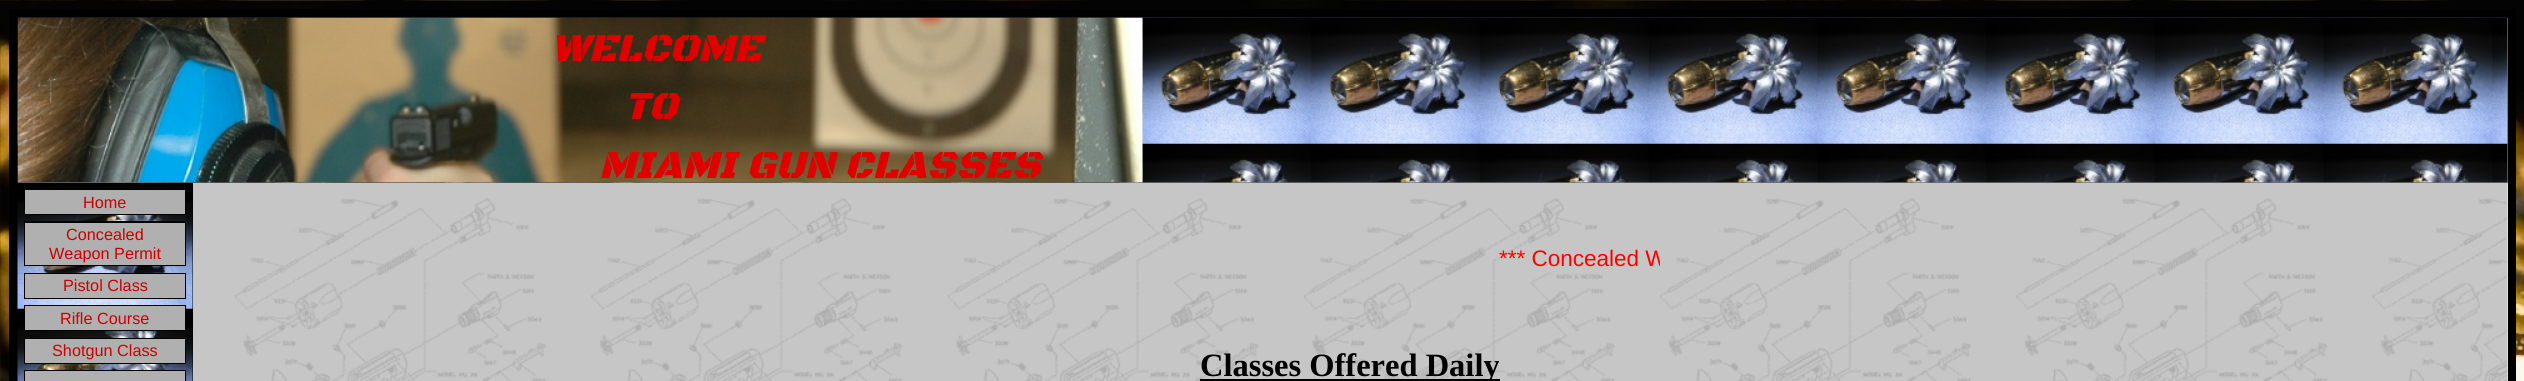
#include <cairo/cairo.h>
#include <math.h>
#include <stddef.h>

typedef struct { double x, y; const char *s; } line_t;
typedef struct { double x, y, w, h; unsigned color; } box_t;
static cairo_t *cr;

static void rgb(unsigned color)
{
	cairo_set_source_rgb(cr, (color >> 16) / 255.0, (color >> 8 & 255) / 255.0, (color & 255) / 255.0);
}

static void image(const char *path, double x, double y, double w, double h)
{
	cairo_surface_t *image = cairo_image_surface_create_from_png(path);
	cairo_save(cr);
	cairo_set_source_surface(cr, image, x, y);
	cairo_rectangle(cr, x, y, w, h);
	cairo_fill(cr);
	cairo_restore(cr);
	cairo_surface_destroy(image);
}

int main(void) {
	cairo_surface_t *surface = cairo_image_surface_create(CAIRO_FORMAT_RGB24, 2524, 381);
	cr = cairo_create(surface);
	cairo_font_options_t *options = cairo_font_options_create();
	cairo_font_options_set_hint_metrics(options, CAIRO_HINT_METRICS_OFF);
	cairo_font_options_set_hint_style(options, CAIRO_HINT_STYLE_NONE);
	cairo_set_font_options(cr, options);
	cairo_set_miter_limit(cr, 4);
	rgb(0xffffff);
	cairo_paint(cr);
	image("img/1.png", 0, 0, 2524, 381);
	rgb(0x000000);
	cairo_rectangle(cr, 9, 9, 2507, 372);
	cairo_fill(cr);
	rgb(0x707070);
	cairo_rectangle(cr, 18, 18, 2490, 165);
	cairo_fill(cr);
	image("img/2.png", 17, 17, 1126, 166);
	image("img/4.png", 1142, 17, 1366, 166);
	image("img/3.png", 17, 17, 1126, 166);
	image("img/5.png", 17, 182, 176, 199);
	{
		static const box_t items[] = {
			{24, 189, 162, 26, 0x000000},
			{25, 190, 160, 24, 0xb0b0b0},
			{24, 221, 162, 45, 0x000000},
			{25, 223, 160, 42, 0xb0b0b0},
			{24, 273, 162, 26, 0x000000},
			{25, 274, 160, 24, 0xb0b0b0},
			{24, 305, 162, 26, 0x000000},
			{25, 306, 160, 24, 0xb0b0b0},
			{24, 338, 162, 26, 0x000000},
			{25, 339, 160, 24, 0xb0b0b0},
			{24, 370, 162, 11, 0x000000},
			{25, 371, 160, 10, 0xb0b0b0},
			{2507, 183, 1, 198, 0xffffff},
		};
		for (size_t i = 0; i < sizeof items / sizeof *items; i++) {
			rgb(items[i].color);
			cairo_rectangle(cr, items[i].x, items[i].y, items[i].w, items[i].h);
			cairo_fill(cr);
		}
	}
	image("img/6.png", 193, 183, 2315, 198);
	rgb(0x000000);
	cairo_rectangle(cr, 1200, 379, 300, 2);
	cairo_fill(cr);
	cairo_select_font_face(cr, "Black Ops One Black", CAIRO_FONT_SLANT_ITALIC, CAIRO_FONT_WEIGHT_NORMAL);
	cairo_set_font_size(cr, 40);
	rgb(0xe00000);
	{
		static const line_t items[] = {
			{551, 61, "WELCOME"},
			{624, 119, "TO"},
			{599, 178, "MIAMI GUN CLASSES"},
		};
		for (size_t i = 0; i < sizeof items / sizeof *items; i++) {
			cairo_move_to(cr, items[i].x, items[i].y);
			cairo_show_text(cr, items[i].s);
		}
	}
	cairo_select_font_face(cr, "Liberation Sans", CAIRO_FONT_SLANT_NORMAL, CAIRO_FONT_WEIGHT_NORMAL);
	cairo_set_font_size(cr, 16.25);
	rgb(0xcc0000);
	{
		static const line_t items[] = {
			{83, 208, "Home"},
			{66, 240, "Concealed"},
			{49, 259, "Weapon Permit"},
			{63, 291, "Pistol Class"},
			{60, 324, "Rifle Course"},
			{52, 356, "Shotgun Class"},
		};
		for (size_t i = 0; i < sizeof items / sizeof *items; i++) {
			cairo_move_to(cr, items[i].x, items[i].y);
			cairo_show_text(cr, items[i].s);
		}
	}
	cairo_save(cr);
	cairo_rectangle(cr, 1050, 230, 610, 41);
	cairo_clip(cr);
	cairo_set_font_size(cr, 22.5);
	rgb(0xff0000);
	cairo_move_to(cr, 1499, 266);
	cairo_show_text(cr, "*** Concealed W");
	cairo_restore(cr);
	cairo_select_font_face(cr, "Liberation Serif", CAIRO_FONT_SLANT_NORMAL, CAIRO_FONT_WEIGHT_BOLD);
	cairo_set_font_size(cr, 32.5);
	rgb(0x000000);
	cairo_move_to(cr, 1200, 376);
	cairo_show_text(cr, "Classes Offered Daily");
	cairo_surface_write_to_png(surface, "page.png");
	cairo_font_options_destroy(options);
	cairo_destroy(cr);
	cairo_surface_destroy(surface);
	return 0;
}
